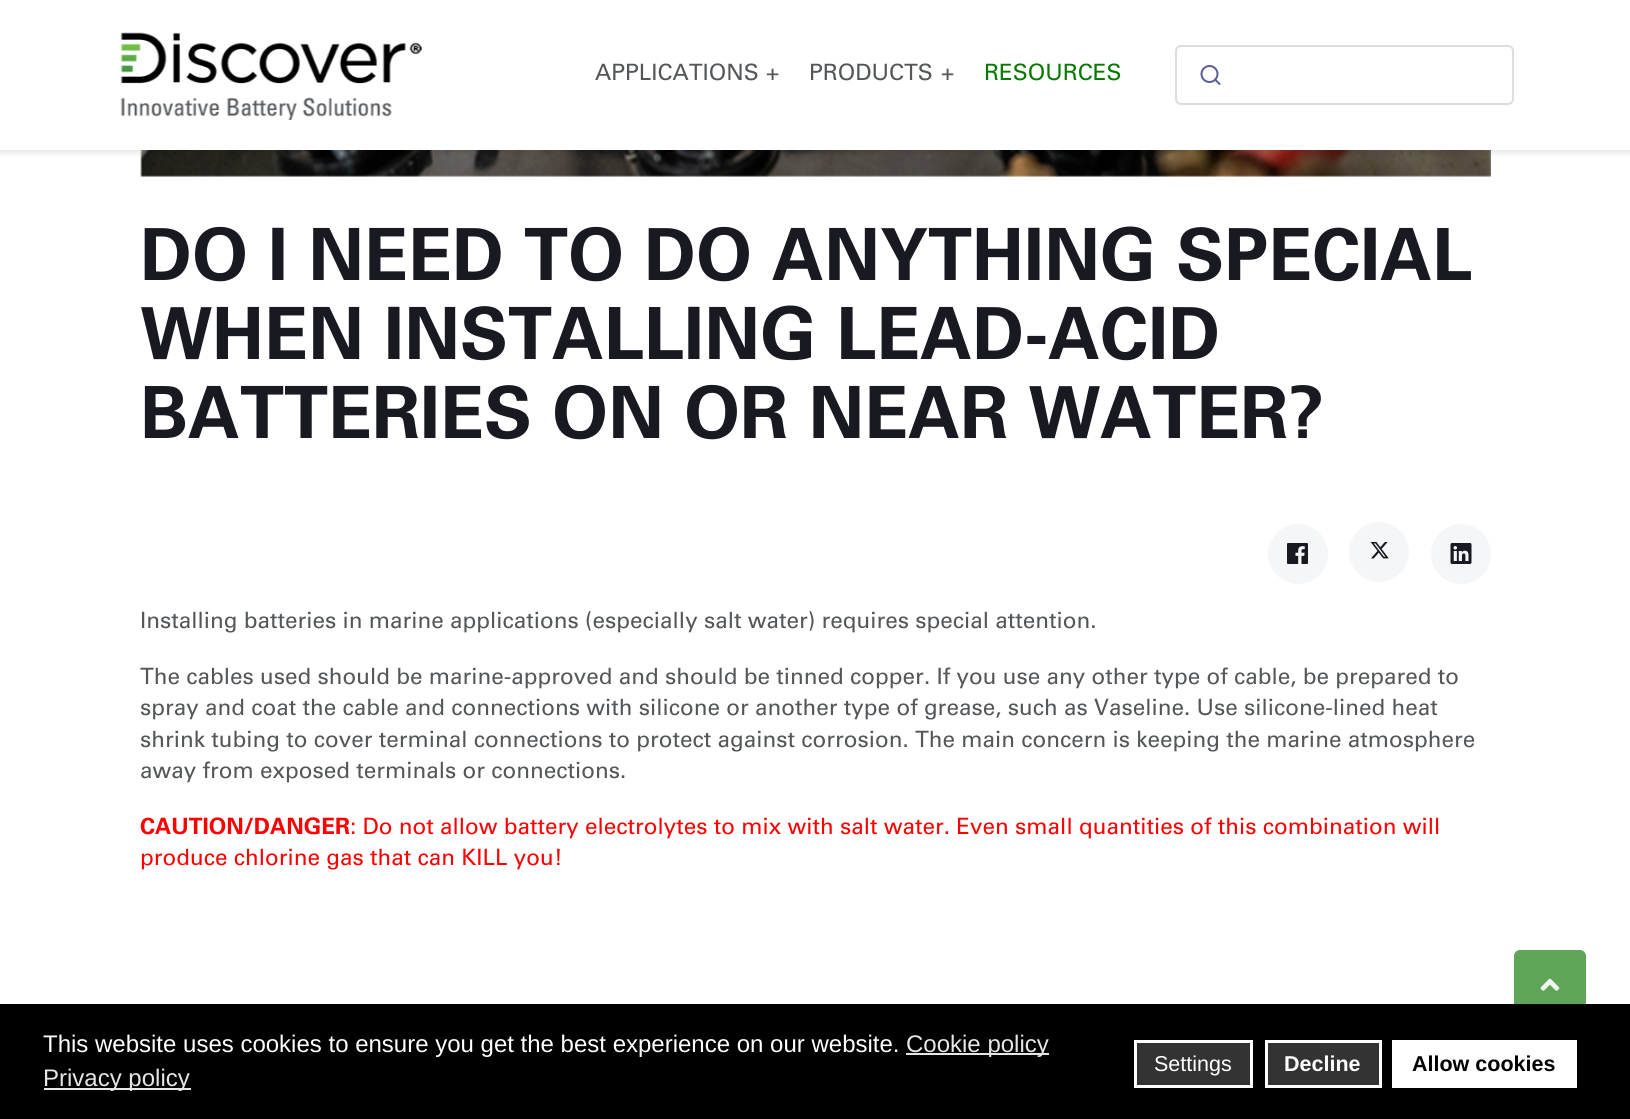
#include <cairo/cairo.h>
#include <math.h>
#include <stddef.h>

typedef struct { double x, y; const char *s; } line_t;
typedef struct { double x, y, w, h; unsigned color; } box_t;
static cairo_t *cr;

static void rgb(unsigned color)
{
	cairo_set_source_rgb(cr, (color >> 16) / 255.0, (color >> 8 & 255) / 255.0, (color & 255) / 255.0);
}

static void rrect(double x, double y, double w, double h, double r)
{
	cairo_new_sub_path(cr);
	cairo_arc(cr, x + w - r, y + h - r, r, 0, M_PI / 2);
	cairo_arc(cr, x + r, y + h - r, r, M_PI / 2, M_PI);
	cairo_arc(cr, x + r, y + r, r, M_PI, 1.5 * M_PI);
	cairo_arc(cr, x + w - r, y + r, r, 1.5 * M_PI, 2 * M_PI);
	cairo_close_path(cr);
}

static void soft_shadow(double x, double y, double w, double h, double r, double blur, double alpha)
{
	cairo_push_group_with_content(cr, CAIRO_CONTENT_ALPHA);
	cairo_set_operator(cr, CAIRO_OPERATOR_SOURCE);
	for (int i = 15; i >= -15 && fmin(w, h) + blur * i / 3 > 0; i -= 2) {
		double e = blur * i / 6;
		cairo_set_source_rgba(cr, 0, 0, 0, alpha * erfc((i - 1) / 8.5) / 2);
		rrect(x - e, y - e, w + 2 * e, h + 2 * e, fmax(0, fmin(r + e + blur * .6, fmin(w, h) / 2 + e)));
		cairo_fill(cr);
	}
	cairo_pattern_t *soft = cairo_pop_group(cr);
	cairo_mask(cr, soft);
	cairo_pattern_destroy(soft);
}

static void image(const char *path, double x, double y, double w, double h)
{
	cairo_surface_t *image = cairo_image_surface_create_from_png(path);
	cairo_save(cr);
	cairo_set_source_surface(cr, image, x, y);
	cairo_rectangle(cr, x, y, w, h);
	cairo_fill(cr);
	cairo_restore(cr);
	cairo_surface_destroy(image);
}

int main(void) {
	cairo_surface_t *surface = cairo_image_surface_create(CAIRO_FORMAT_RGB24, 1630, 1119);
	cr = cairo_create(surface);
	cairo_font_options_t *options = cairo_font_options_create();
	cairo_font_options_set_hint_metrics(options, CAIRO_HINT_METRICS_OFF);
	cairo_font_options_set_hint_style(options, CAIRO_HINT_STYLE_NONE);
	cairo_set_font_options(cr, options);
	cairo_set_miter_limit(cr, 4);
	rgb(0xffffff);
	cairo_paint(cr);
	image("img/2.png", 140, 150, 1351, 27);
	rgb(0x000000);
	soft_shadow(0, 3, 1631, 150, 0, 3, 0.1);
	rgb(0xffffff);
	cairo_rectangle(cr, 0, 0, 1630, 150);
	cairo_fill(cr);
	image("img/1.png", 120, 32, 303, 88);
	rrect(1176, 46, 337, 58, 5);
	rgb(0xdbdee1);
	cairo_stroke(cr);
	cairo_arc(cr, 1209.5, 74, 8, 0, 2 * M_PI);
	rgb(0x5a5e9a);
	cairo_stroke(cr);
	cairo_new_path(cr);
	cairo_move_to(cr, 1219.5, 84);
	cairo_line_to(cr, 1215, 79.5);
	cairo_set_line_cap(cr, CAIRO_LINE_CAP_ROUND);
	cairo_set_line_join(cr, CAIRO_LINE_JOIN_ROUND);
	cairo_stroke(cr);
	rgb(0xf5f6f7);
	cairo_arc(cr, 1298, 554, 30, 0, 2 * M_PI);
	cairo_fill(cr);
	image("img/3.png", 1287, 543, 21, 21);
	cairo_arc(cr, 1379, 552, 30, 0, 2 * M_PI);
	cairo_fill(cr);
	image("img/4.png", 1370, 541, 19, 18);
	cairo_arc(cr, 1461, 554, 30, 0, 2 * M_PI);
	cairo_fill(cr);
	image("img/5.png", 1450, 543, 22, 21);
	cairo_set_source_rgba(cr, 0.302, 0.608, 0.271, 0.9);
	rrect(1514, 950, 72, 72, 6);
	cairo_fill(cr);
	image("img/6.png", 1540, 978, 20, 13);
	{
		static const box_t items[] = {
			{0, 1004, 1630, 115, 0x000000},
			{906, 1053, 143, 2, 0xe6e6e6},
			{44, 1088, 147, 2, 0xe6e6e6},
		};
		for (size_t i = 0; i < sizeof items / sizeof *items; i++) {
			rgb(items[i].color);
			cairo_rectangle(cr, items[i].x, items[i].y, items[i].w, items[i].h);
			cairo_fill(cr);
		}
	}
	rgb(0x333333);
	cairo_rectangle(cr, 1135.5, 1041.5, 116, 45);
	cairo_fill_preserve(cr);
	rgb(0xffffff);
	cairo_set_line_width(cr, 3);
	cairo_set_line_cap(cr, CAIRO_LINE_CAP_BUTT);
	cairo_set_line_join(cr, CAIRO_LINE_JOIN_MITER);
	cairo_stroke(cr);
	rgb(0x333333);
	cairo_rectangle(cr, 1266.5, 1041.5, 114, 45);
	cairo_fill_preserve(cr);
	rgb(0xffffff);
	cairo_stroke(cr);
	cairo_rectangle(cr, 1392, 1040, 185, 48);
	cairo_fill(cr);
	cairo_select_font_face(cr, "Univers", CAIRO_FONT_SLANT_NORMAL, CAIRO_FONT_WEIGHT_NORMAL);
	cairo_set_font_size(cr, 22.5);
	rgb(0x545759);
	{
		static const line_t items[] = {
			{595, 80, "APPLICATIONS"},
			{766, 80, "+"},
			{809, 80, "PRODUCTS"},
			{941, 80, "+"},
		};
		for (size_t i = 0; i < sizeof items / sizeof *items; i++) {
			cairo_move_to(cr, items[i].x, items[i].y);
			cairo_show_text(cr, items[i].s);
		}
	}
	rgb(0x067a00);
	cairo_move_to(cr, 984, 80);
	cairo_show_text(cr, "RESOURCES");
	cairo_select_font_face(cr, "Univers", CAIRO_FONT_SLANT_NORMAL, CAIRO_FONT_WEIGHT_BOLD);
	cairo_set_font_size(cr, 72);
	rgb(0x181921);
	{
		static const line_t items[] = {
			{140, 280, "DO I NEED TO DO ANYTHING SPECIAL"},
			{140, 359, "WHEN INSTALLING LEAD-ACID"},
			{140, 438, "BATTERIES ON OR NEAR WATER?"},
		};
		for (size_t i = 0; i < sizeof items / sizeof *items; i++) {
			cairo_move_to(cr, items[i].x, items[i].y);
			cairo_show_text(cr, items[i].s);
		}
	}
	cairo_select_font_face(cr, "Univers", CAIRO_FONT_SLANT_NORMAL, CAIRO_FONT_WEIGHT_NORMAL);
	cairo_set_font_size(cr, 22.5);
	rgb(0x545759);
	{
		static const line_t items[] = {
			{140, 628, "Installing batteries in marine applications (especially salt water) requires special attention."},
			{140, 684, "The cables used should be marine-approved and should be tinned copper. If you use any other type of cable, be prepared to"},
			{140, 715, "spray and coat the cable and connections with silicone or another type of grease, such as Vaseline. Use silicone-lined heat"},
			{140, 747, "shrink tubing to cover terminal connections to protect against corrosion. The main concern is keeping the marine atmosphere"},
			{140, 778, "away from exposed terminals or connections."},
		};
		for (size_t i = 0; i < sizeof items / sizeof *items; i++) {
			cairo_move_to(cr, items[i].x, items[i].y);
			cairo_show_text(cr, items[i].s);
		}
	}
	cairo_select_font_face(cr, "Univers", CAIRO_FONT_SLANT_NORMAL, CAIRO_FONT_WEIGHT_BOLD);
	rgb(0xff0000);
	cairo_move_to(cr, 140, 834);
	cairo_show_text(cr, "CAUTION/DANGER");
	cairo_select_font_face(cr, "Univers", CAIRO_FONT_SLANT_NORMAL, CAIRO_FONT_WEIGHT_NORMAL);
	cairo_move_to(cr, 350, 834);
	cairo_show_text(cr, ": Do not allow battery electrolytes to mix with salt water. Even small quantities of this combination will");
	cairo_move_to(cr, 140, 865);
	cairo_show_text(cr, "produce chlorine gas that can KILL you!");
	cairo_select_font_face(cr, "Liberation Sans", CAIRO_FONT_SLANT_NORMAL, CAIRO_FONT_WEIGHT_NORMAL);
	cairo_set_font_size(cr, 24);
	rgb(0xffffff);
	cairo_move_to(cr, 43, 1052);
	cairo_show_text(cr, "This website uses cookies to ensure you get the best experience on our website.");
	rgb(0xe6e6e6);
	cairo_move_to(cr, 906, 1052);
	cairo_show_text(cr, "Cookie policy");
	cairo_move_to(cr, 43, 1086);
	cairo_show_text(cr, "Privacy policy");
	cairo_set_font_size(cr, 21.5);
	rgb(0xffffff);
	cairo_move_to(cr, 1154, 1071);
	cairo_show_text(cr, "Settings");
	cairo_select_font_face(cr, "Liberation Sans", CAIRO_FONT_SLANT_NORMAL, CAIRO_FONT_WEIGHT_BOLD);
	cairo_move_to(cr, 1284, 1071);
	cairo_show_text(cr, "Decline");
	rgb(0x000000);
	cairo_move_to(cr, 1412, 1071);
	cairo_show_text(cr, "Allow cookies");
	cairo_surface_write_to_png(surface, "page.png");
	cairo_font_options_destroy(options);
	cairo_destroy(cr);
	cairo_surface_destroy(surface);
	return 0;
}
